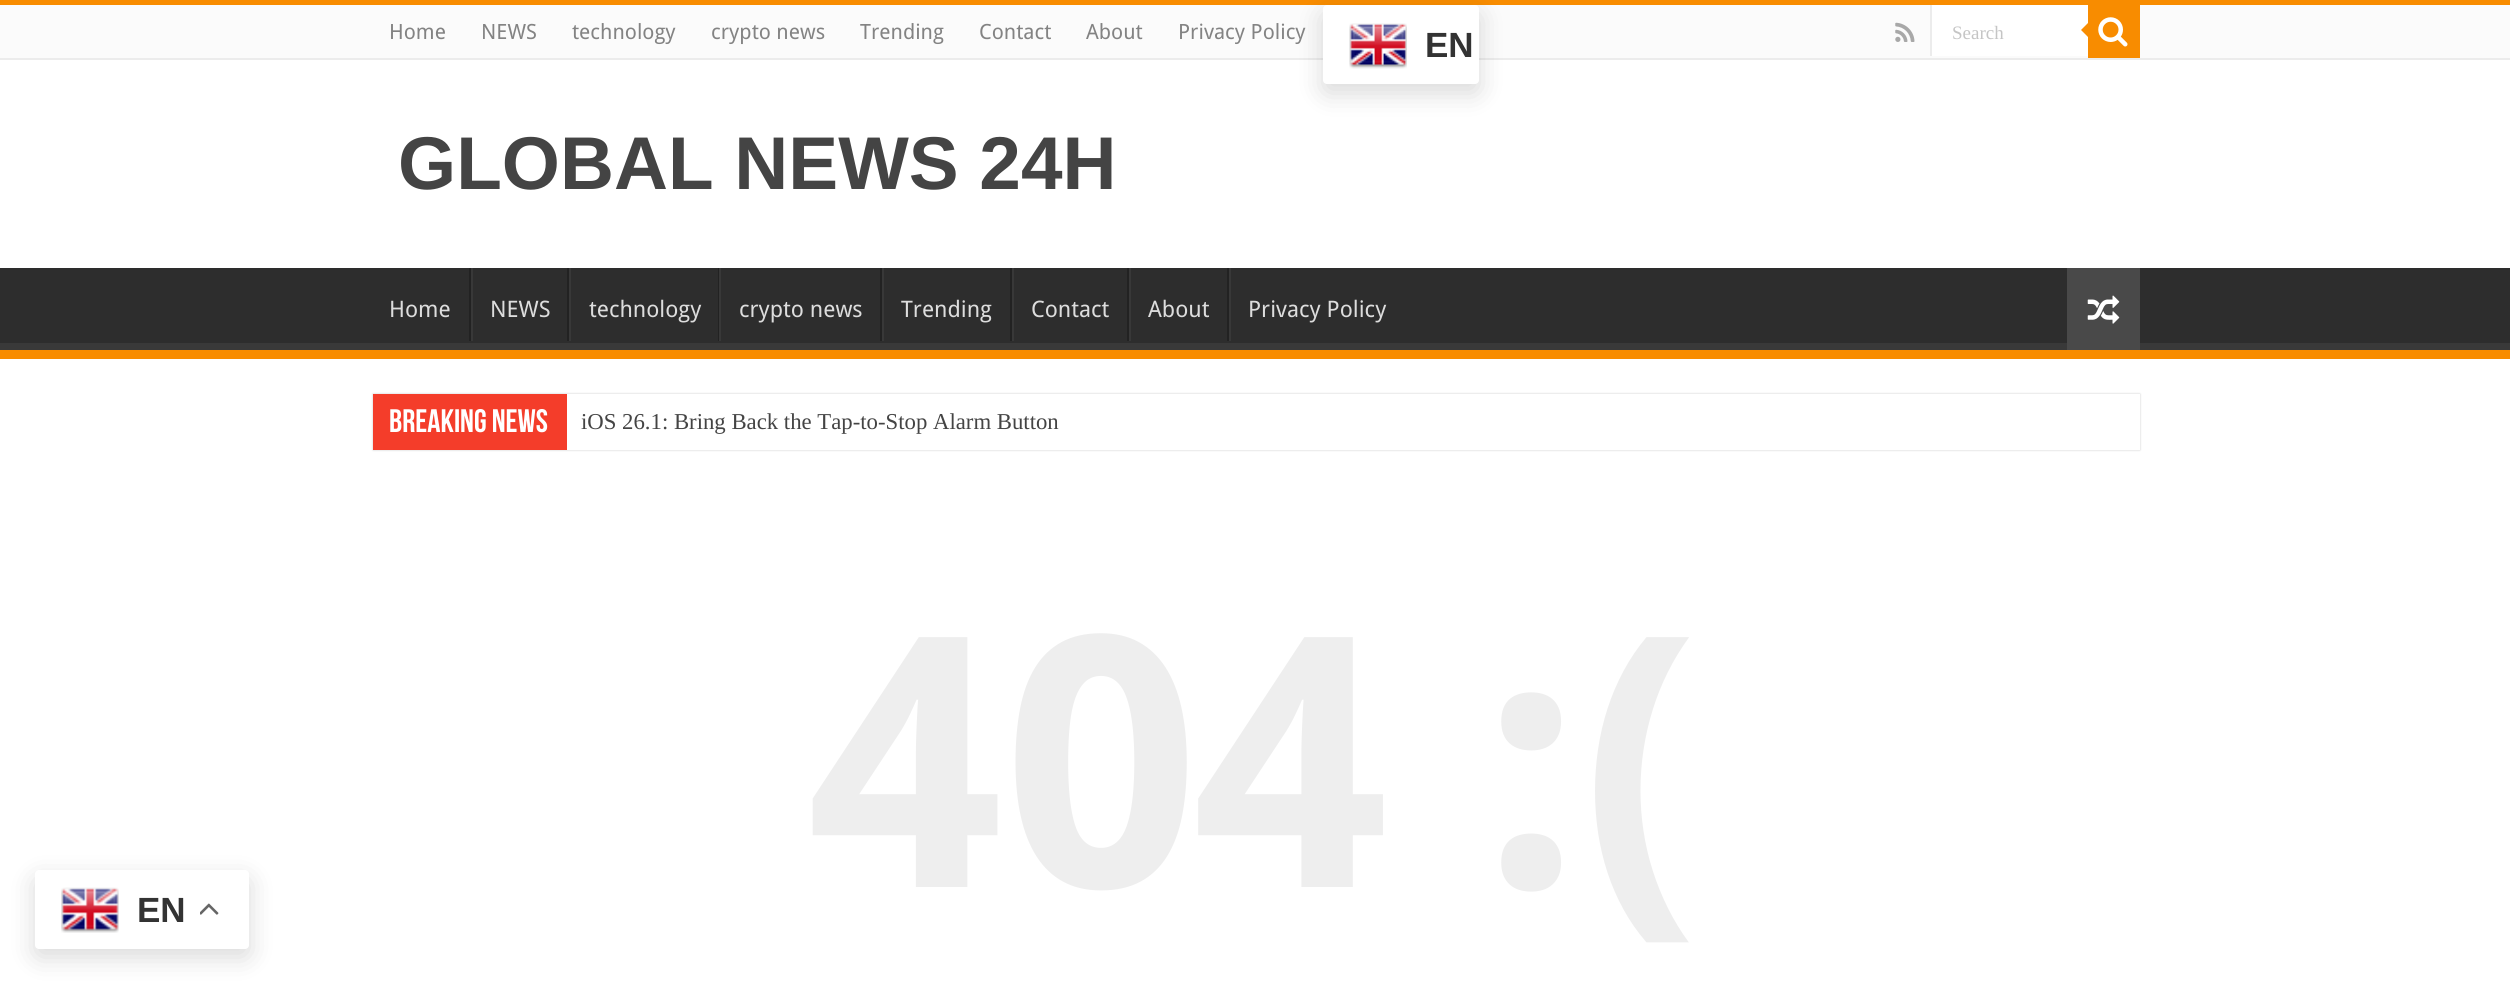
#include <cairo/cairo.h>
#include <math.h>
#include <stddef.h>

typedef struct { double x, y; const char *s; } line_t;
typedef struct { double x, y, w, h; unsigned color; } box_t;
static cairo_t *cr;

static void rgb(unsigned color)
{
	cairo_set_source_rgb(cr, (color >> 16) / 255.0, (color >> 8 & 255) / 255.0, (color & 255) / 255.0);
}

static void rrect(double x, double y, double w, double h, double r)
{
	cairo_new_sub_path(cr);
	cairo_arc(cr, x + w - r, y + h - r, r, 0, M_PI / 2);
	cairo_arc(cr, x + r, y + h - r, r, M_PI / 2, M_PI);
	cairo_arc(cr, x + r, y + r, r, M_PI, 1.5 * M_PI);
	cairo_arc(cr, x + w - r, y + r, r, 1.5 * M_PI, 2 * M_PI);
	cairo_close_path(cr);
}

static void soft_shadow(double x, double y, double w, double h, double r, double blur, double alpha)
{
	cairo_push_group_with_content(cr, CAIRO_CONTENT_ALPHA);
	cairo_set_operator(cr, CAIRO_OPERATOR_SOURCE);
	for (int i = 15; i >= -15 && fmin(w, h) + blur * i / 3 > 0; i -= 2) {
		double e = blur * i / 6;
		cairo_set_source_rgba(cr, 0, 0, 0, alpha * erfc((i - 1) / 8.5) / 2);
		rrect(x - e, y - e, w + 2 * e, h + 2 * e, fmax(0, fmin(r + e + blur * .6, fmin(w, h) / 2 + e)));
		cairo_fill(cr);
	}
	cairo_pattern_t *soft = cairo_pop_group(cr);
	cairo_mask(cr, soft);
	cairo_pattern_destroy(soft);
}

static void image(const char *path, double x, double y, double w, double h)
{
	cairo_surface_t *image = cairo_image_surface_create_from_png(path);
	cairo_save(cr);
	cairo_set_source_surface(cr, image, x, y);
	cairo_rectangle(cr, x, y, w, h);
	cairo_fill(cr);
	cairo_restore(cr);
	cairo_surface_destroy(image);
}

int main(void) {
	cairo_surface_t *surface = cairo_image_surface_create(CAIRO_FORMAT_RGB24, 2510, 988);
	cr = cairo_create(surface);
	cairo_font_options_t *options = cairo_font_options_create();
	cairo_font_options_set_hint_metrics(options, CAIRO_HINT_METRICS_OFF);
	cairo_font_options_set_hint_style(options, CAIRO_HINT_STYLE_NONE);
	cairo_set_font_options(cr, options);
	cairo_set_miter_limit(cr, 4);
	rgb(0xffffff);
	cairo_paint(cr);
	rgb(0x000000);
	soft_shadow(35, 879, 214, 78, 4, 13, 0.15);
	rgb(0xffffff);
	rrect(35, 870, 214, 79, 4);
	cairo_fill(cr);
	image("img/1.png", 61, 887, 58, 46);
	image("img/2.png", 200, 903, 19, 12);
	{
		static const box_t items[] = {
			{0, 0, 2510, 5, 0xf88c00},
			{0, 5, 2510, 53, 0xfbfbfb},
			{0, 58, 2510, 2, 0xececec},
		};
		for (size_t i = 0; i < sizeof items / sizeof *items; i++) {
			rgb(items[i].color);
			cairo_rectangle(cr, items[i].x, items[i].y, items[i].w, items[i].h);
			cairo_fill(cr);
		}
	}
	rgb(0x000000);
	soft_shadow(1323, 14, 156, 79, 4, 13, 0.15);
	rgb(0xffffff);
	rrect(1323, 5, 156, 79, 4);
	cairo_fill(cr);
	image("img/3.png", 1349, 23, 58, 46);
	image("img/4.png", 1895, 22, 20, 20);
	{
		static const box_t items[] = {
			{1932, 5, 156, 51, 0xffffff},
			{1930, 5, 2, 51, 0xececec},
			{2088, 5, 52, 53, 0xf88c00},
		};
		for (size_t i = 0; i < sizeof items / sizeof *items; i++) {
			rgb(items[i].color);
			cairo_rectangle(cr, items[i].x, items[i].y, items[i].w, items[i].h);
			cairo_fill(cr);
		}
	}
	image("img/5.png", 2098, 17, 30, 30);
	cairo_new_path(cr);
	cairo_move_to(cr, 2088, 23);
	cairo_line_to(cr, 2088, 37);
	cairo_line_to(cr, 2081, 30);
	cairo_close_path(cr);
	cairo_fill(cr);
	rgb(0x2d2d2d);
	cairo_rectangle(cr, 0, 268, 2510, 75);
	cairo_fill(cr);
	cairo_save(cr);
	cairo_rectangle(cr, 0, 268, 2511, 82);
	cairo_clip(cr);
	rgb(0x393939);
	cairo_set_fill_rule(cr, CAIRO_FILL_RULE_EVEN_ODD);
	cairo_new_path(cr);
	cairo_move_to(cr, -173, 94);
	cairo_line_to(cr, 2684, 94);
	cairo_line_to(cr, 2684, 523);
	cairo_line_to(cr, -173, 523);
	cairo_close_path(cr);
	cairo_move_to(cr, -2, 257);
	cairo_line_to(cr, 2510, 257);
	cairo_curve_to(cr, 2510, 257, 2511, 258, 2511, 259);
	cairo_line_to(cr, 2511, 341);
	cairo_curve_to(cr, 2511, 342, 2510, 343, 2510, 343);
	cairo_line_to(cr, -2, 343);
	cairo_curve_to(cr, -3, 343, -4, 342, -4, 341);
	cairo_line_to(cr, -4, 259);
	cairo_curve_to(cr, -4, 258, -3, 257, -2, 257);
	cairo_close_path(cr);
	cairo_fill(cr);
	cairo_restore(cr);
	{
		static const box_t items[] = {
			{0, 350, 2510, 9, 0xf88c00},
			{469, 268, 2, 73, 0x222222},
			{471, 268, 2, 73, 0x383838},
			{567, 268, 2, 73, 0x222222},
			{569, 268, 2, 73, 0x383838},
			{718, 268, 1, 73, 0x222222},
			{719, 268, 2, 73, 0x383838},
			{880, 268, 2, 73, 0x222222},
			{882, 268, 2, 73, 0x383838},
			{1010, 268, 2, 73, 0x222222},
			{1012, 268, 2, 73, 0x383838},
			{1127, 268, 2, 73, 0x222222},
			{1129, 268, 2, 73, 0x383838},
			{1227, 268, 2, 73, 0x222222},
			{1229, 268, 2, 73, 0x383838},
			{2067, 268, 73, 82, 0x494949},
		};
		for (size_t i = 0; i < sizeof items / sizeof *items; i++) {
			rgb(items[i].color);
			cairo_rectangle(cr, items[i].x, items[i].y, items[i].w, items[i].h);
			cairo_fill(cr);
		}
	}
	image("img/6.png", 2087, 295, 33, 29);
	rgb(0xcacaca);
	soft_shadow(373, 394, 1767, 56, 0, 1, 1);
	rgb(0xffffff);
	cairo_rectangle(cr, 567, 394, 1573, 56);
	cairo_fill(cr);
	rgb(0xf43d2a);
	cairo_rectangle(cr, 373, 394, 194, 56);
	cairo_fill(cr);
	cairo_select_font_face(cr, "Liberation Sans", CAIRO_FONT_SLANT_NORMAL, CAIRO_FONT_WEIGHT_BOLD);
	cairo_set_font_size(cr, 35);
	rgb(0x333333);
	cairo_move_to(cr, 137, 922);
	cairo_show_text(cr, "EN");
	cairo_select_font_face(cr, "Droid Sans", CAIRO_FONT_SLANT_NORMAL, CAIRO_FONT_WEIGHT_NORMAL);
	cairo_set_font_size(cr, 21);
	rgb(0x838383);
	{
		static const line_t items[] = {
			{389, 39, "Home"},
			{481, 39, "NEWS"},
			{572, 39, "technology"},
			{711, 39, "crypto news"},
			{860, 39, "Trending"},
			{979, 39, "Contact"},
			{1086, 39, "About"},
			{1178, 39, "Privacy Policy"},
		};
		for (size_t i = 0; i < sizeof items / sizeof *items; i++) {
			cairo_move_to(cr, items[i].x, items[i].y);
			cairo_show_text(cr, items[i].s);
		}
	}
	cairo_select_font_face(cr, "Liberation Sans", CAIRO_FONT_SLANT_NORMAL, CAIRO_FONT_WEIGHT_BOLD);
	cairo_set_font_size(cr, 35);
	rgb(0x333333);
	cairo_move_to(cr, 1425, 57);
	cairo_show_text(cr, "EN");
	cairo_select_font_face(cr, "Liberation Serif", CAIRO_FONT_SLANT_NORMAL, CAIRO_FONT_WEIGHT_NORMAL);
	cairo_set_font_size(cr, 19);
	rgb(0xc5c5c5);
	cairo_move_to(cr, 1952, 39);
	cairo_show_text(cr, "Search");
	cairo_select_font_face(cr, "Liberation Sans", CAIRO_FONT_SLANT_NORMAL, CAIRO_FONT_WEIGHT_BOLD);
	cairo_set_font_size(cr, 74.75);
	rgb(0x444444);
	cairo_move_to(cr, 398, 189);
	cairo_show_text(cr, "GLOBAL NEWS 24H");
	cairo_select_font_face(cr, "Droid Sans", CAIRO_FONT_SLANT_NORMAL, CAIRO_FONT_WEIGHT_NORMAL);
	cairo_set_font_size(cr, 22.75);
	rgb(0xdddddd);
	{
		static const line_t items[] = {
			{389, 317, "Home"},
			{490, 317, "NEWS"},
			{589, 317, "technology"},
			{739, 317, "crypto news"},
			{901, 317, "Trending"},
			{1031, 317, "Contact"},
			{1148, 317, "About"},
			{1248, 317, "Privacy Policy"},
		};
		for (size_t i = 0; i < sizeof items / sizeof *items; i++) {
			cairo_move_to(cr, items[i].x, items[i].y);
			cairo_show_text(cr, items[i].s);
		}
	}
	cairo_select_font_face(cr, "Bebas Neue", CAIRO_FONT_SLANT_NORMAL, CAIRO_FONT_WEIGHT_BOLD);
	cairo_set_font_size(cr, 32.5);
	rgb(0xffffff);
	cairo_move_to(cr, 389, 432);
	cairo_show_text(cr, "Breaking News");
	cairo_select_font_face(cr, "Liberation Serif", CAIRO_FONT_SLANT_NORMAL, CAIRO_FONT_WEIGHT_NORMAL);
	cairo_set_font_size(cr, 22.75);
	rgb(0x444444);
	cairo_move_to(cr, 581, 429);
	cairo_show_text(cr, "iOS 26.1: Bring Back the Tap-to-Stop Alarm Button");
	cairo_select_font_face(cr, "Droid Sans", CAIRO_FONT_SLANT_NORMAL, CAIRO_FONT_WEIGHT_BOLD);
	cairo_set_font_size(cr, 350);
	rgb(0xeeeeee);
	cairo_move_to(cr, 812, 887);
	cairo_show_text(cr, "404 :(");
	cairo_surface_write_to_png(surface, "page.png");
	cairo_font_options_destroy(options);
	cairo_destroy(cr);
	cairo_surface_destroy(surface);
	return 0;
}
